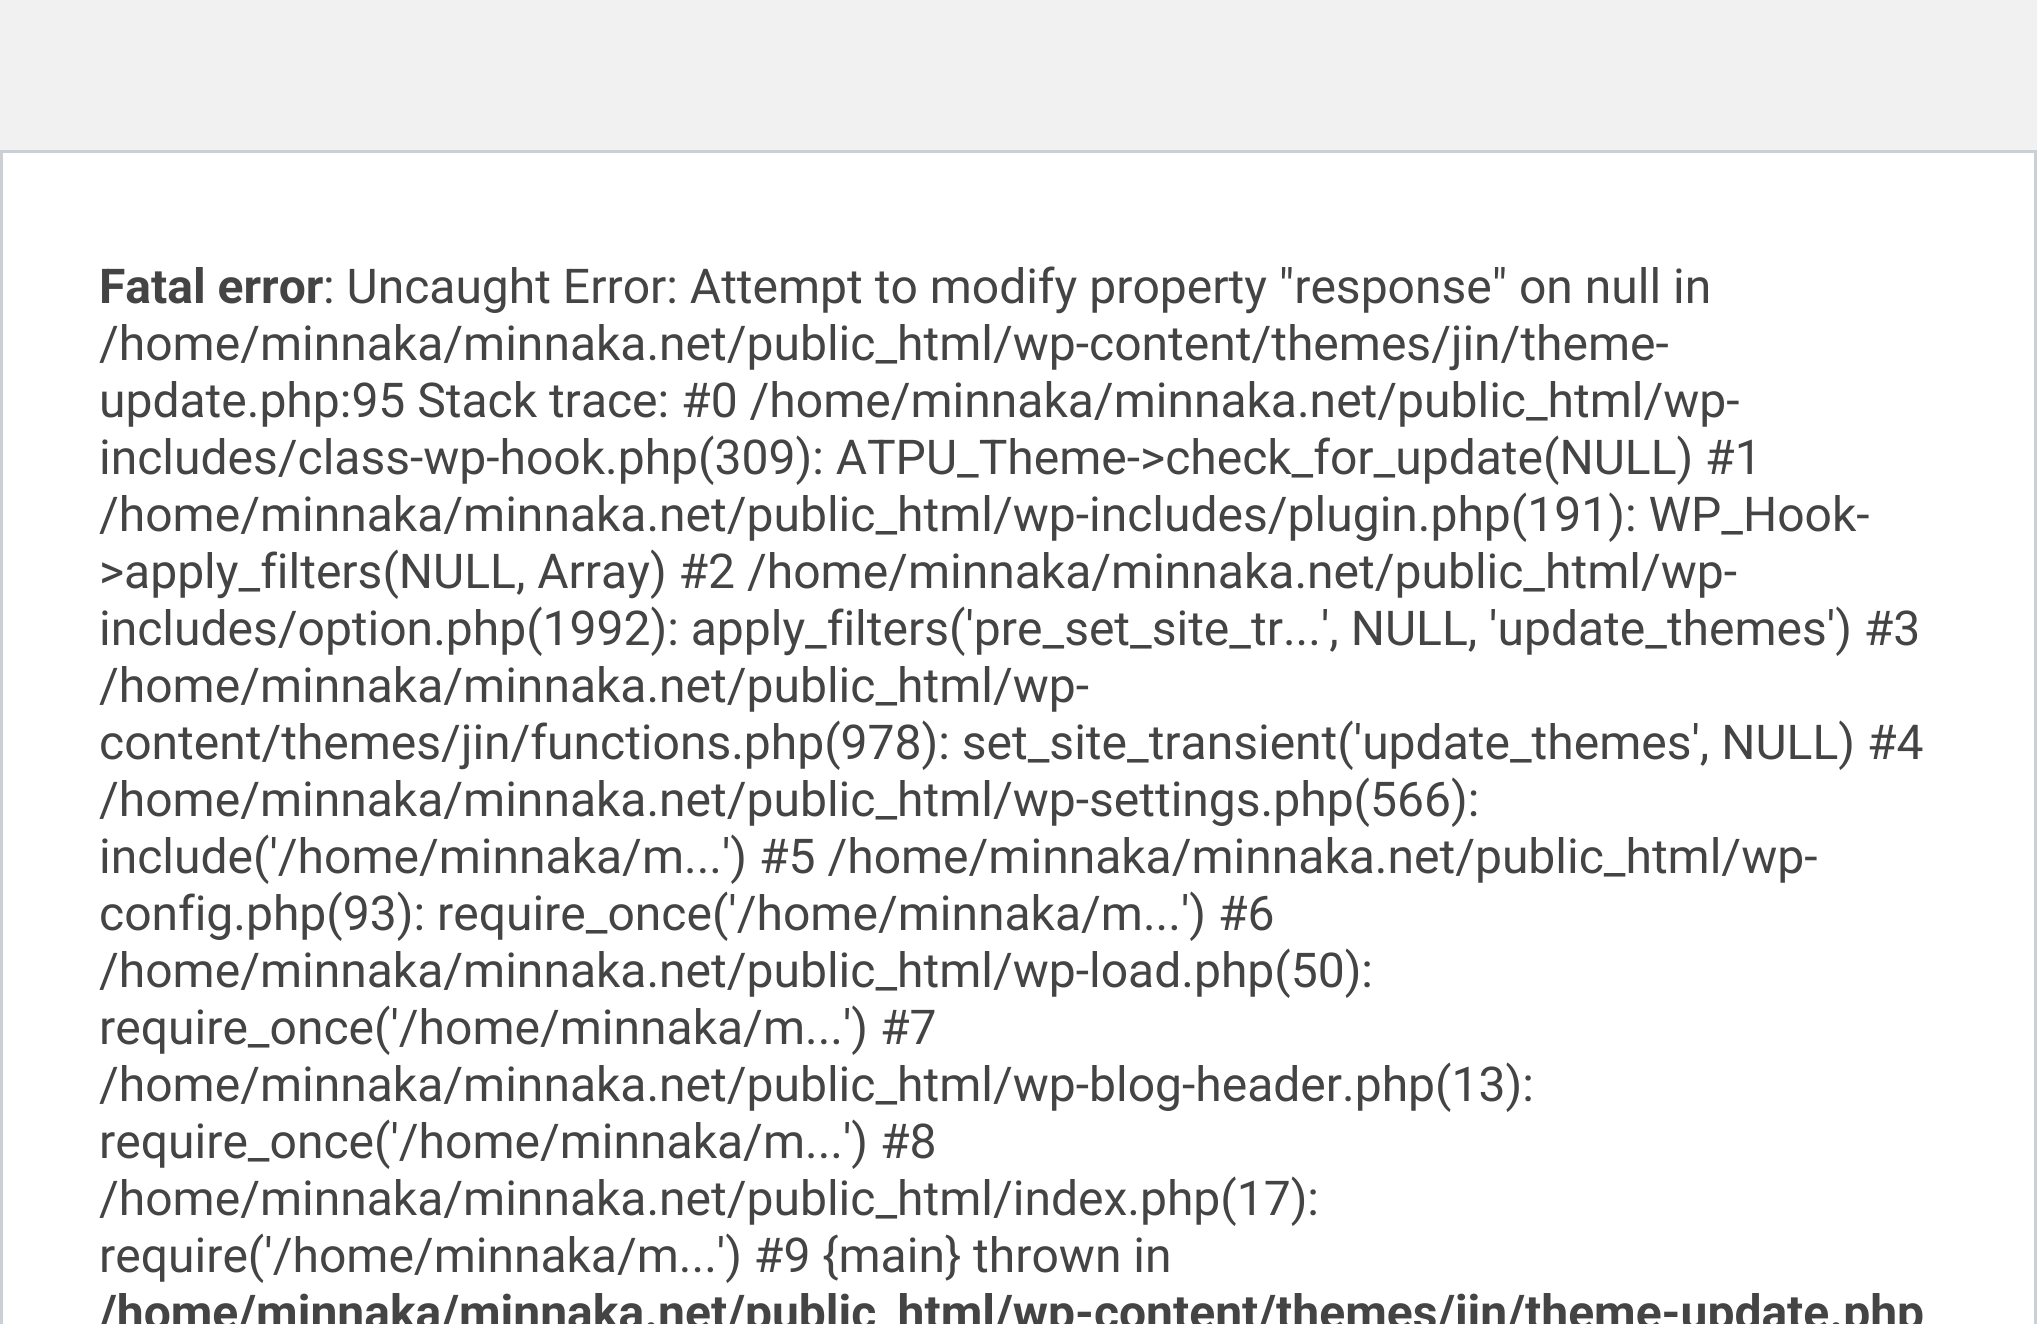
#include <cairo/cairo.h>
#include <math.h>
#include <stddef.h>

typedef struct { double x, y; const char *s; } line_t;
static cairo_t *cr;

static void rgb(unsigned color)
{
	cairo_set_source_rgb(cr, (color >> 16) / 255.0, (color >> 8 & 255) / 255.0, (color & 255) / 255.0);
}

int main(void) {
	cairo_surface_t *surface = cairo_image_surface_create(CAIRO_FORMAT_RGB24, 2037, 1324);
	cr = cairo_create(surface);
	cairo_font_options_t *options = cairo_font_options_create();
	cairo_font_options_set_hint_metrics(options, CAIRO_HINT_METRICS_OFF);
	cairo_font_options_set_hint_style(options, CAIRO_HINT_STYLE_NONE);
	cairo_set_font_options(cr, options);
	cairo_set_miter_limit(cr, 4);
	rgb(0xf1f1f1);
	cairo_paint(cr);
	rgb(0xffffff);
	cairo_rectangle(cr, 1.5, 151.5, 2034, 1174);
	cairo_fill_preserve(cr);
	rgb(0xccd0d4);
	cairo_set_line_width(cr, 3);
	cairo_stroke(cr);
	cairo_select_font_face(cr, "Roboto", CAIRO_FONT_SLANT_NORMAL, CAIRO_FONT_WEIGHT_BOLD);
	cairo_set_font_size(cr, 48);
	rgb(0x444444);
	cairo_move_to(cr, 99, 303);
	cairo_show_text(cr, "Fatal error");
	cairo_select_font_face(cr, "Roboto", CAIRO_FONT_SLANT_NORMAL, CAIRO_FONT_WEIGHT_NORMAL);
	{
		static const line_t items[] = {
			{323, 303, ": Uncaught Error: Attempt to modify property \"response\" on null in"},
			{99, 360, "/home/minnaka/minnaka.net/public_html/wp-content/themes/jin/theme-"},
			{99, 417, "update.php:95 Stack trace: #0 /home/minnaka/minnaka.net/public_html/wp-"},
			{99, 474, "includes/class-wp-hook.php(309): ATPU_Theme->check_for_update(NULL) #1"},
			{99, 531, "/home/minnaka/minnaka.net/public_html/wp-includes/plugin.php(191): WP_Hook-"},
			{99, 588, ">apply_filters(NULL, Array) #2 /home/minnaka/minnaka.net/public_html/wp-"},
			{99, 645, "includes/option.php(1992): apply_filters('pre_set_site_tr...', NULL, 'update_themes') #3"},
			{99, 702, "/home/minnaka/minnaka.net/public_html/wp-"},
			{99, 759, "content/themes/jin/functions.php(978): set_site_transient('update_themes', NULL) #4"},
			{99, 816, "/home/minnaka/minnaka.net/public_html/wp-settings.php(566):"},
			{99, 873, "include('/home/minnaka/m...') #5 /home/minnaka/minnaka.net/public_html/wp-"},
			{99, 930, "config.php(93): require_once('/home/minnaka/m...') #6"},
			{99, 987, "/home/minnaka/minnaka.net/public_html/wp-load.php(50):"},
			{99, 1044, "require_once('/home/minnaka/m...') #7"},
			{99, 1101, "/home/minnaka/minnaka.net/public_html/wp-blog-header.php(13):"},
			{99, 1158, "require_once('/home/minnaka/m...') #8"},
			{99, 1215, "/home/minnaka/minnaka.net/public_html/index.php(17):"},
			{99, 1272, "require('/home/minnaka/m...') #9 {main} thrown in"},
		};
		for (size_t i = 0; i < sizeof items / sizeof *items; i++) {
			cairo_move_to(cr, items[i].x, items[i].y);
			cairo_show_text(cr, items[i].s);
		}
	}
	cairo_select_font_face(cr, "Roboto", CAIRO_FONT_SLANT_NORMAL, CAIRO_FONT_WEIGHT_BOLD);
	cairo_move_to(cr, 99, 1329);
	cairo_show_text(cr, "/home/minnaka/minnaka.net/public_html/wp-content/themes/jin/theme-update.php");
	cairo_surface_write_to_png(surface, "page.png");
	cairo_font_options_destroy(options);
	cairo_destroy(cr);
	cairo_surface_destroy(surface);
	return 0;
}
